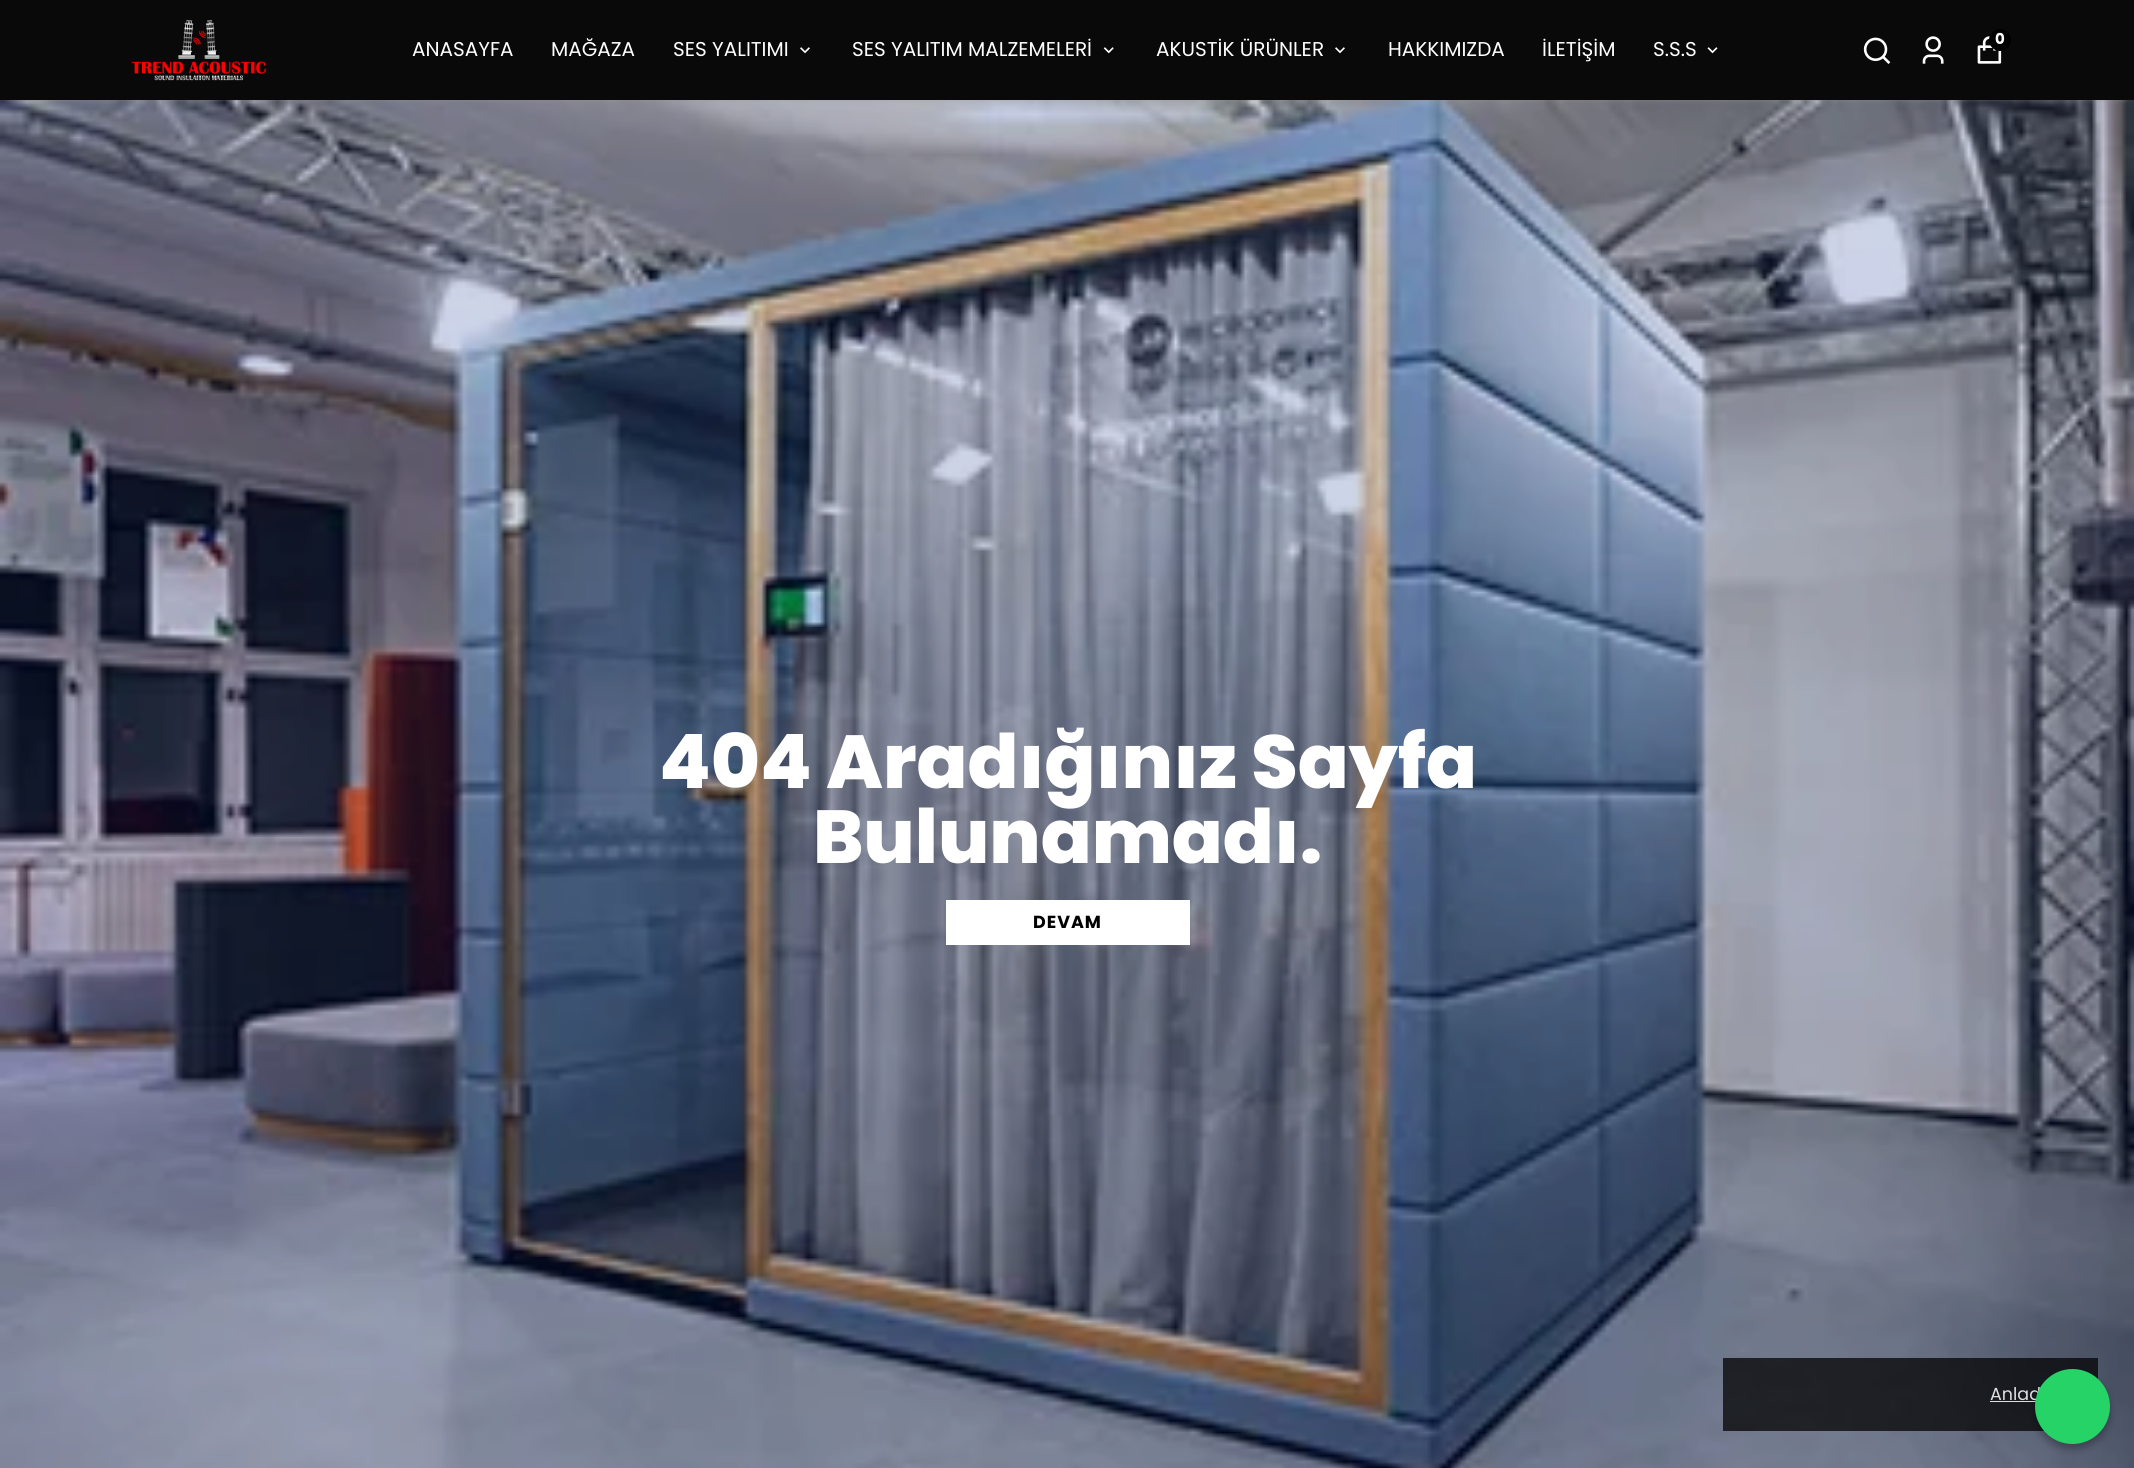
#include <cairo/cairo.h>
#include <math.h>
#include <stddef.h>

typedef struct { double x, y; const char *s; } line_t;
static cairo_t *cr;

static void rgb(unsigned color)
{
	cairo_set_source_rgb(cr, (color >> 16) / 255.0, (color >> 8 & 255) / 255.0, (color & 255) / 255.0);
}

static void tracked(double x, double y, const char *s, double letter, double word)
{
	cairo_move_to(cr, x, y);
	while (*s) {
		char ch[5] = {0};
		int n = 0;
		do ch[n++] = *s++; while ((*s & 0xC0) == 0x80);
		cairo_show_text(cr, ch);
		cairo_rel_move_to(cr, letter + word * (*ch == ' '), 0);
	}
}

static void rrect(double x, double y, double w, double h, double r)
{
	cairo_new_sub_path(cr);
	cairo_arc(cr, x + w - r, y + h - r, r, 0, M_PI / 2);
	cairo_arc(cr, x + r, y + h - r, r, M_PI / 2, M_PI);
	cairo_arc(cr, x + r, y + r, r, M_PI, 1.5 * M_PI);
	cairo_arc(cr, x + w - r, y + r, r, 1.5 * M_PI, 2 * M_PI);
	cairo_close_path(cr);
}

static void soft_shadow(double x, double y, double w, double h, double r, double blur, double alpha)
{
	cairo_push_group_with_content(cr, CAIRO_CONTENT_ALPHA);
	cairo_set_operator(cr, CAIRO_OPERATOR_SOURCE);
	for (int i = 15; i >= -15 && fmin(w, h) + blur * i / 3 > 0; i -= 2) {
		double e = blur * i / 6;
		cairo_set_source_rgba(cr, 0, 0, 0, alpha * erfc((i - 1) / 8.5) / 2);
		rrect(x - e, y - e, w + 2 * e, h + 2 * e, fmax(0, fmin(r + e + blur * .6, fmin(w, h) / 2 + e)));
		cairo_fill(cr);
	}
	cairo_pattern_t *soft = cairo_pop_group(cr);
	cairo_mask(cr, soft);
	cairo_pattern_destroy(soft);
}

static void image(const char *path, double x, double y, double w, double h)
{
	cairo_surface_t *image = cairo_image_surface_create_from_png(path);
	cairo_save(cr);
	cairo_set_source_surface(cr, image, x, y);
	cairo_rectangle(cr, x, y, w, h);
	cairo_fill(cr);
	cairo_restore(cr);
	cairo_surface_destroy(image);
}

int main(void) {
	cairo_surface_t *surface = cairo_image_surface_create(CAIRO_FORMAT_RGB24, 2134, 1468);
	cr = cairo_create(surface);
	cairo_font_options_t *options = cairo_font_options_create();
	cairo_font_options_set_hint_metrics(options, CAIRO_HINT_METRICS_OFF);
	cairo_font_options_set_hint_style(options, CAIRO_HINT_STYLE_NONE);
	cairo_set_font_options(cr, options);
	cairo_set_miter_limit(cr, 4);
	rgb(0xffffff);
	cairo_paint(cr);
	image("img/8.png", 0, 100, 2134, 1368);
	rgb(0x989898);
	soft_shadow(9, 15, 2117, 83, 0, 3, 1);
	rgb(0x09090a);
	cairo_rectangle(cr, 0, 0, 2134, 100);
	cairo_fill(cr);
	image("img/1.png", 131, 19, 136, 62);
	image("img/2.png", 800, 47, 10, 7);
	image("img/3.png", 1103, 47, 11, 7);
	image("img/2.png", 1335, 47, 10, 7);
	image("img/4.png", 1707, 47, 11, 7);
	image("img/5.png", 1863, 37, 28, 27);
	image("img/6.png", 1922, 36, 22, 28);
	image("img/7.png", 1977, 36, 25, 28);
	rgb(0x000000);
	cairo_arc(cr, 2000, 40, 11, 0, 2 * M_PI);
	cairo_fill(cr);
	cairo_set_source_rgba(cr, 0, 0, 0, 0.73);
	cairo_rectangle(cr, 1723, 1358, 375, 73);
	cairo_fill(cr);
	cairo_set_source_rgba(cr, 1, 1, 1, 0.86);
	cairo_rectangle(cr, 1990, 1401, 46, 1);
	cairo_fill(cr);
	rgb(0xffffff);
	cairo_rectangle(cr, 946, 900, 244, 45);
	cairo_fill(cr);
	rgb(0x000000);
	soft_shadow(2035, 1374, 75, 75, 37.5, 4, 0.3);
	cairo_select_font_face(cr, "Poppins", CAIRO_FONT_SLANT_NORMAL, CAIRO_FONT_WEIGHT_NORMAL);
	cairo_set_font_size(cr, 20);
	rgb(0xffffff);
	{
		static const line_t items[] = {
			{412, 56, "ANASAYFA"},
			{551, 56, "MAĞAZA"},
			{673, 56, "SES YALITIMI"},
			{852, 56, "SES YALITIM MALZEMELERİ"},
			{1156, 56, "AKUSTİK ÜRÜNLER"},
			{1388, 56, "HAKKIMIZDA"},
			{1542, 56, "İLETİŞİM"},
			{1653, 56, "S.S.S"},
		};
		for (size_t i = 0; i < sizeof items / sizeof *items; i++) {
			cairo_move_to(cr, items[i].x, items[i].y);
			cairo_show_text(cr, items[i].s);
		}
	}
	cairo_select_font_face(cr, "Poppins", CAIRO_FONT_SLANT_NORMAL, CAIRO_FONT_WEIGHT_BOLD);
	cairo_set_font_size(cr, 15);
	cairo_move_to(cr, 1995, 44);
	cairo_show_text(cr, "0");
	cairo_select_font_face(cr, "Poppins", CAIRO_FONT_SLANT_NORMAL, CAIRO_FONT_WEIGHT_NORMAL);
	cairo_set_font_size(cr, 17.5);
	rgb(0xdfdfe0);
	cairo_move_to(cr, 1990, 1400);
	cairo_show_text(cr, "Anlad");
	cairo_select_font_face(cr, "Poppins ExtraBold", CAIRO_FONT_SLANT_NORMAL, CAIRO_FONT_WEIGHT_NORMAL);
	cairo_set_font_size(cr, 75);
	rgb(0xffffff);
	cairo_move_to(cr, 659, 788);
	cairo_show_text(cr, "404 Aradığınız Sayfa");
	cairo_move_to(cr, 813, 863);
	cairo_show_text(cr, "Bulunamadı.");
	cairo_select_font_face(cr, "Poppins", CAIRO_FONT_SLANT_NORMAL, CAIRO_FONT_WEIGHT_BOLD);
	cairo_set_font_size(cr, 17.5);
	rgb(0x000000);
	tracked(1033, 928, "DEVAM", 1, 0);
	rgb(0x25d366);
	cairo_new_path(cr);
	cairo_arc(cr, 2072.5, 1406.5, 37.5, 0, 2 * M_PI);
	cairo_fill(cr);
	cairo_surface_write_to_png(surface, "page.png");
	cairo_font_options_destroy(options);
	cairo_destroy(cr);
	cairo_surface_destroy(surface);
	return 0;
}
